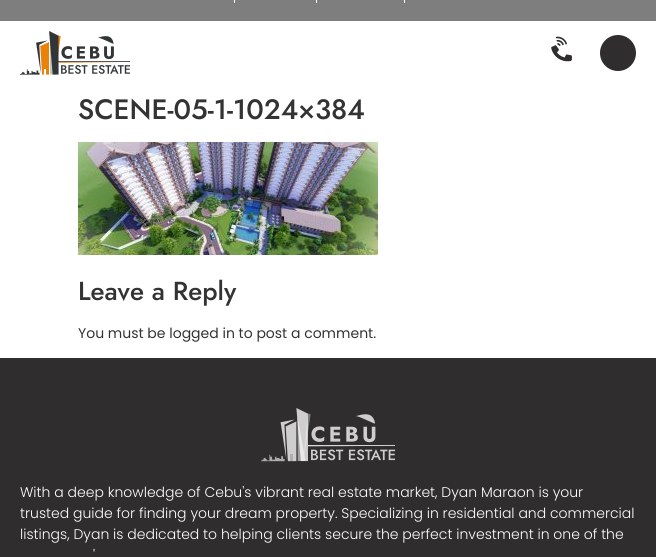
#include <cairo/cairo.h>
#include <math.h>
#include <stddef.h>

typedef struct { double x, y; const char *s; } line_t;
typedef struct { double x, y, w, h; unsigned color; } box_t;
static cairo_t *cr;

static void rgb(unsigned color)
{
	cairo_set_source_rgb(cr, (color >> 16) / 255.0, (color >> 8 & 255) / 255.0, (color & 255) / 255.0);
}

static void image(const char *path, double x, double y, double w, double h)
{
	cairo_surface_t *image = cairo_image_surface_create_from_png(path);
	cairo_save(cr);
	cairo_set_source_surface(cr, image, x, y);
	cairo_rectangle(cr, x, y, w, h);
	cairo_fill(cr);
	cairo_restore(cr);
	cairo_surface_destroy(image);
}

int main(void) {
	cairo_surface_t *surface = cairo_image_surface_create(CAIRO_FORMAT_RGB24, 656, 557);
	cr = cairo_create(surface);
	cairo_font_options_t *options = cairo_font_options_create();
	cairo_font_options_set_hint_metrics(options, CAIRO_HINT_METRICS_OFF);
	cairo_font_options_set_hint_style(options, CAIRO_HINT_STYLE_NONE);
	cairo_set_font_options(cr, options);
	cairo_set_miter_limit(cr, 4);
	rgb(0xffffff);
	cairo_paint(cr);
	{
		static const box_t items[] = {
			{0, 0, 656, 21, 0x7e7e7e},
			{234, 0, 1, 3, 0xffffff},
			{316, 0, 1, 3, 0xffffff},
			{404, 0, 1, 3, 0xffffff},
		};
		for (size_t i = 0; i < sizeof items / sizeof *items; i++) {
			rgb(items[i].color);
			cairo_rectangle(cr, items[i].x, items[i].y, items[i].w, items[i].h);
			cairo_fill(cr);
		}
	}
	image("img/1.png", 20, 31, 110, 44);
	image("img/2.png", 551, 36, 21, 26);
	rgb(0x302d2f);
	cairo_arc(cr, 618, 53, 18, 0, 2 * M_PI);
	cairo_fill(cr);
	image("img/3.png", 78, 142, 300, 113);
	cairo_rectangle(cr, 0, 358, 656, 199);
	cairo_fill(cr);
	image("img/4.png", 261, 408, 134, 54);
	cairo_select_font_face(cr, "Jost Medium", CAIRO_FONT_SLANT_NORMAL, CAIRO_FONT_WEIGHT_NORMAL);
	cairo_set_font_size(cr, 28);
	rgb(0x333333);
	cairo_move_to(cr, 78, 119);
	cairo_show_text(cr, "SCENE-05-1-1024×384");
	cairo_set_font_size(cr, 26);
	cairo_move_to(cr, 78, 300);
	cairo_show_text(cr, "Leave a Reply");
	cairo_select_font_face(cr, "Poppins", CAIRO_FONT_SLANT_NORMAL, CAIRO_FONT_WEIGHT_NORMAL);
	cairo_set_font_size(cr, 14);
	cairo_move_to(cr, 78, 338);
	cairo_show_text(cr, "You must be logged in to post a comment.");
	cairo_select_font_face(cr, "Poppins Light", CAIRO_FONT_SLANT_NORMAL, CAIRO_FONT_WEIGHT_NORMAL);
	rgb(0xffffff);
	{
		static const line_t items[] = {
			{20, 497, "With a deep knowledge of Cebu's vibrant real estate market, Dyan Maraon is your"},
			{20, 518, "trusted guide for finding your dream property. Specializing in residential and commercial"},
			{20, 539, "listings, Dyan is dedicated to helping clients secure the perfect investment in one of the"},
			{93, 560, "'"},
		};
		for (size_t i = 0; i < sizeof items / sizeof *items; i++) {
			cairo_move_to(cr, items[i].x, items[i].y);
			cairo_show_text(cr, items[i].s);
		}
	}
	cairo_surface_write_to_png(surface, "page.png");
	cairo_font_options_destroy(options);
	cairo_destroy(cr);
	cairo_surface_destroy(surface);
	return 0;
}
